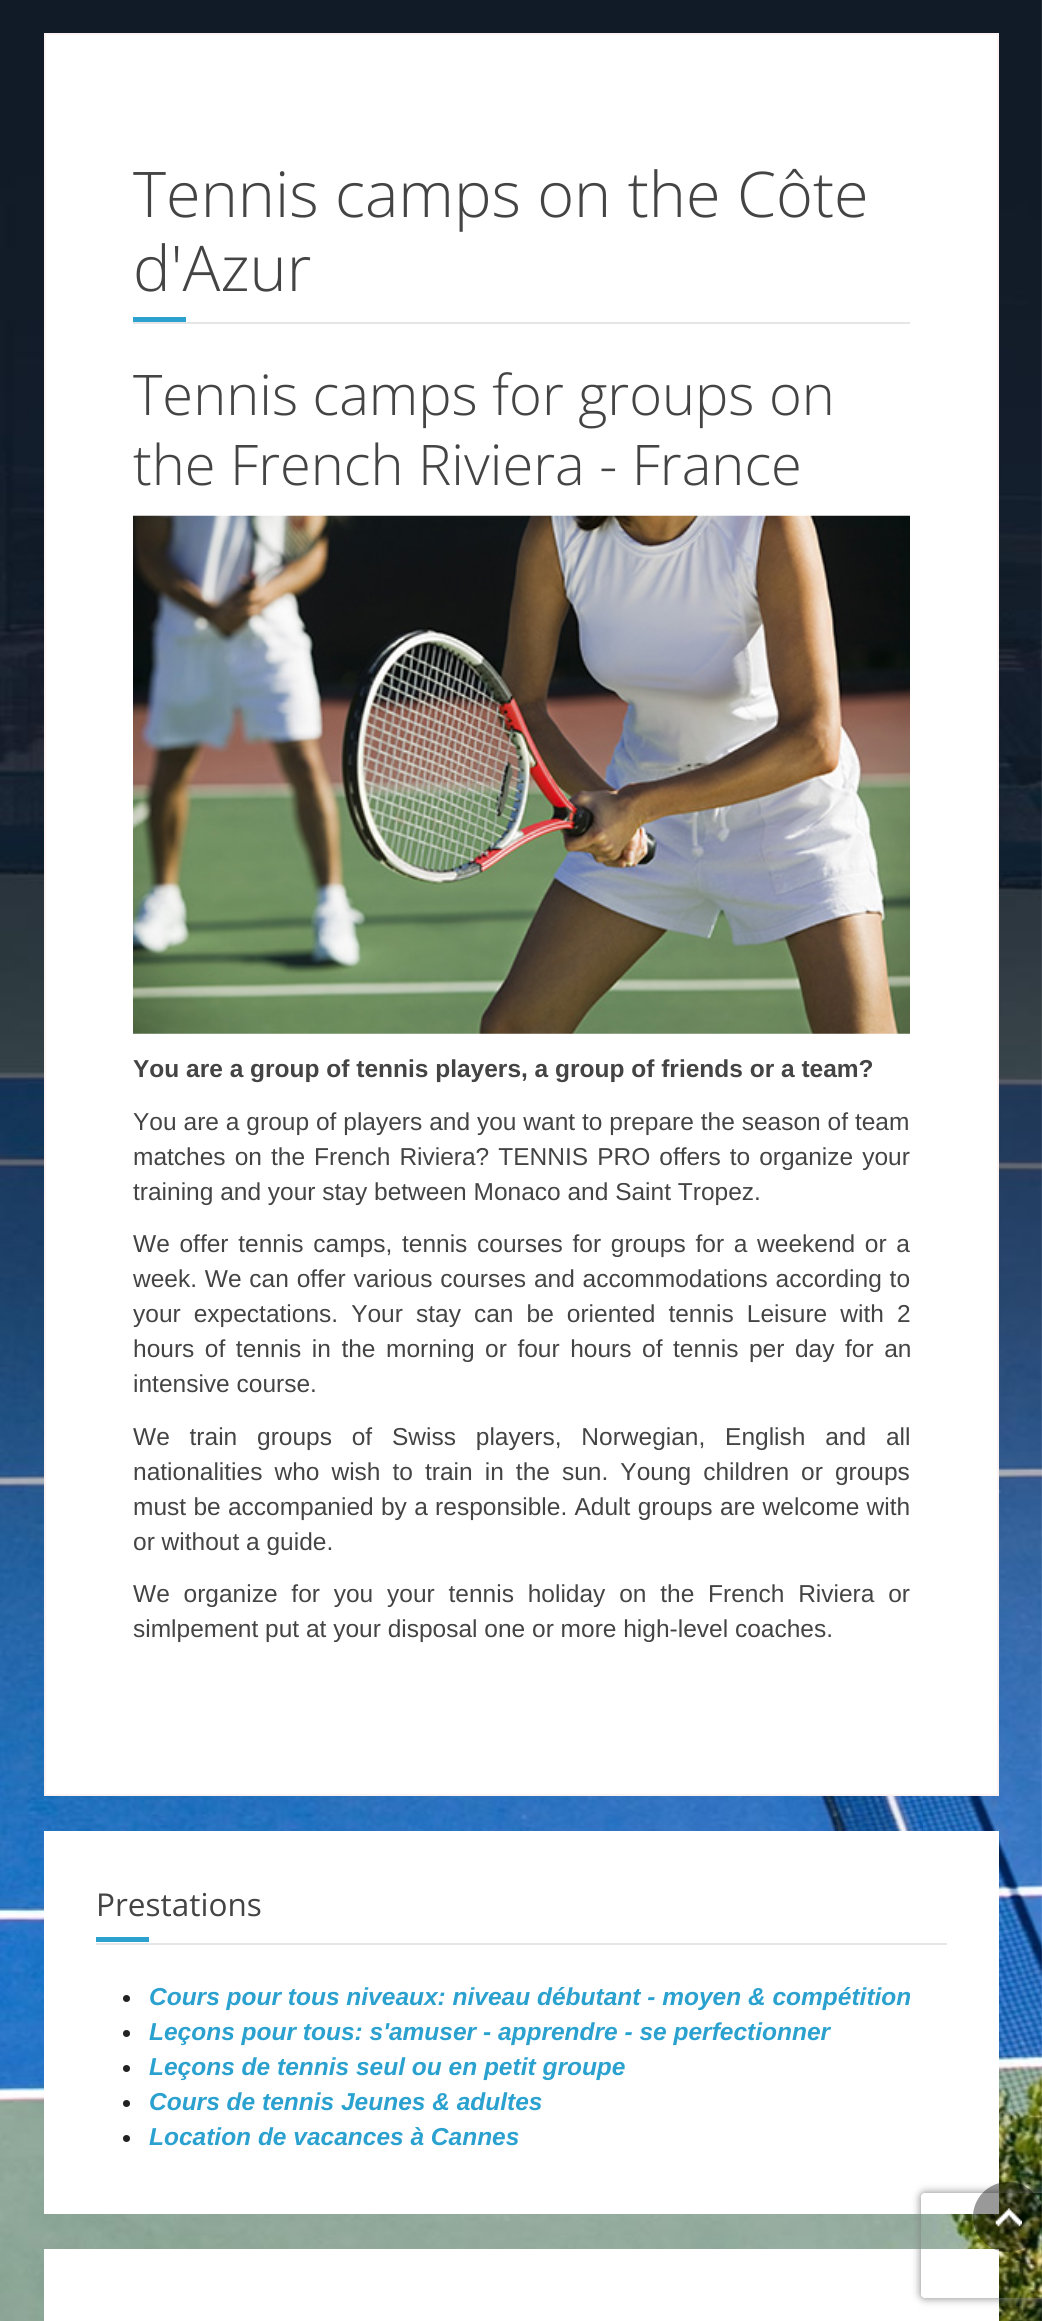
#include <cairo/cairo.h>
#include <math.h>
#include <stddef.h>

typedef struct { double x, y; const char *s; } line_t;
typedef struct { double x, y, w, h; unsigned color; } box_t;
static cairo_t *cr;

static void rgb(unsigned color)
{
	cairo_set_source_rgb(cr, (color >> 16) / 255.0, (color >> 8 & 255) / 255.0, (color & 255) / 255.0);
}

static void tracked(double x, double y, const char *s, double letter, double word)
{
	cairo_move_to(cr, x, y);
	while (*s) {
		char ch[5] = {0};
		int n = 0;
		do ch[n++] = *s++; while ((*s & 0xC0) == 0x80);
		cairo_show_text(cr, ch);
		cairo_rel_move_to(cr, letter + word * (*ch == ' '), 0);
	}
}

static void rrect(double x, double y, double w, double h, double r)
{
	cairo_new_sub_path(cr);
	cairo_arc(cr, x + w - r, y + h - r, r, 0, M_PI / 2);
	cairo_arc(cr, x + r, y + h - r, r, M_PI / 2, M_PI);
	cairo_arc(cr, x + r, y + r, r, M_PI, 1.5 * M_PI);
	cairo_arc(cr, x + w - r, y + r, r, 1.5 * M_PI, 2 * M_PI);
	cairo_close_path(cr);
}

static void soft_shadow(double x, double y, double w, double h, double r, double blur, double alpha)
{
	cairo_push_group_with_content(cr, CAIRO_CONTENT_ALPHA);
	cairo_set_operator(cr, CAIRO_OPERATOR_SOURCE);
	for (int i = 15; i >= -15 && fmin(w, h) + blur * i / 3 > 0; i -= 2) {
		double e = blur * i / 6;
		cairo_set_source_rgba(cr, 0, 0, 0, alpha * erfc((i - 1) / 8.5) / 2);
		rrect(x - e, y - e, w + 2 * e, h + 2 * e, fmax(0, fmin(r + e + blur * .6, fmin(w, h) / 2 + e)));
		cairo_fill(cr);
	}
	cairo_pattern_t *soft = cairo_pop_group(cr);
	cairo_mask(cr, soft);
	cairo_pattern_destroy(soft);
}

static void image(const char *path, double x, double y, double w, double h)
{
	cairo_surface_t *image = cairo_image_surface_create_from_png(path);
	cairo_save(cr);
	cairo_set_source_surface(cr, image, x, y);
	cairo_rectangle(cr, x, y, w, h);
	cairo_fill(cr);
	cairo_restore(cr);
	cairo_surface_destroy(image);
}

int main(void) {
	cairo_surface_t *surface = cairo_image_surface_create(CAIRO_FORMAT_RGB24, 1042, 2321);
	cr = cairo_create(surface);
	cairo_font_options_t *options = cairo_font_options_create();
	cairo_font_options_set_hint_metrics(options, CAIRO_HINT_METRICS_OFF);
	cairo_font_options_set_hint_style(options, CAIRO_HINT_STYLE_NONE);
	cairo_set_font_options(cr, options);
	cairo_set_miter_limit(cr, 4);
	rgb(0xffffff);
	cairo_paint(cr);
	image("img/1.png", 0, 0, 1042, 2321);
	rgb(0xffffff);
	cairo_rectangle(cr, 45, 34, 953, 1761);
	cairo_fill_preserve(cr);
	rgb(0xfdf3f3);
	cairo_stroke(cr);
	rgb(0xe6e6e6);
	cairo_rectangle(cr, 133, 322, 777, 2);
	cairo_fill(cr);
	rgb(0x2ba1cf);
	cairo_rectangle(cr, 133, 317, 53, 5);
	cairo_fill(cr);
	image("img/2.png", 133, 515, 777, 519);
	{
		static const box_t items[] = {
			{44, 1831, 955, 383, 0xffffff},
			{96, 1943, 851, 2, 0xe6e6e6},
			{96, 1937, 53, 5, 0x2ba1cf},
		};
		for (size_t i = 0; i < sizeof items / sizeof *items; i++) {
			rgb(items[i].color);
			cairo_rectangle(cr, items[i].x, items[i].y, items[i].w, items[i].h);
			cairo_fill(cr);
		}
	}
	rgb(0x222222);
	cairo_arc(cr, 126.5, 1998.5, 3.5, 0, 2 * M_PI);
	cairo_fill(cr);
	cairo_arc(cr, 126.5, 2033.5, 3.5, 0, 2 * M_PI);
	cairo_fill(cr);
	cairo_arc(cr, 126.5, 2068.5, 3.5, 0, 2 * M_PI);
	cairo_fill(cr);
	cairo_arc(cr, 126.5, 2103.5, 3.5, 0, 2 * M_PI);
	cairo_fill(cr);
	cairo_arc(cr, 126.5, 2138.5, 3.5, 0, 2 * M_PI);
	cairo_fill(cr);
	rgb(0xffffff);
	cairo_rectangle(cr, 44, 2249, 955, 72);
	cairo_fill(cr);
	cairo_save(cr);
	cairo_set_fill_rule(cr, CAIRO_FILL_RULE_EVEN_ODD);
	cairo_new_path(cr);
	cairo_move_to(cr, 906, 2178);
	cairo_line_to(cr, 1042, 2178);
	cairo_line_to(cr, 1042, 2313);
	cairo_line_to(cr, 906, 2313);
	cairo_close_path(cr);
	cairo_move_to(cr, 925, 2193);
	cairo_line_to(cr, 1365, 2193);
	cairo_curve_to(cr, 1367, 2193, 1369, 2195, 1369, 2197);
	cairo_line_to(cr, 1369, 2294);
	cairo_curve_to(cr, 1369, 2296, 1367, 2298, 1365, 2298);
	cairo_line_to(cr, 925, 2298);
	cairo_curve_to(cr, 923, 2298, 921, 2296, 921, 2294);
	cairo_line_to(cr, 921, 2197);
	cairo_curve_to(cr, 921, 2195, 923, 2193, 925, 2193);
	cairo_close_path(cr);
	cairo_clip(cr);
	rgb(0x808080);
	soft_shadow(921, 2193, 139, 105, 4, 4.5, 1);
	cairo_restore(cr);
	cairo_set_source_rgba(cr, 0, 0, 0, 0.4);
	cairo_arc(cr, 1008, 2217, 35, 0, 2 * M_PI);
	cairo_fill(cr);
	image("img/3.png", 995, 2208, 27, 19);
	cairo_select_font_face(cr, "Open Sans Light", CAIRO_FONT_SLANT_NORMAL, CAIRO_FONT_WEIGHT_NORMAL);
	cairo_set_font_size(cr, 63);
	rgb(0x444444);
	cairo_move_to(cr, 133, 217);
	cairo_show_text(cr, "Tennis camps on the Côte");
	cairo_move_to(cr, 133, 291);
	cairo_show_text(cr, "d'Azur");
	cairo_set_font_size(cr, 56);
	cairo_move_to(cr, 133, 415);
	cairo_show_text(cr, "Tennis camps for groups on");
	cairo_move_to(cr, 133, 485);
	cairo_show_text(cr, "the French Riviera - France");
	cairo_select_font_face(cr, "Liberation Sans", CAIRO_FONT_SLANT_NORMAL, CAIRO_FONT_WEIGHT_BOLD);
	cairo_set_font_size(cr, 24.5);
	cairo_move_to(cr, 133, 1077);
	cairo_show_text(cr, "You are a group of tennis players, a group of friends or a team?");
	cairo_select_font_face(cr, "Liberation Sans", CAIRO_FONT_SLANT_NORMAL, CAIRO_FONT_WEIGHT_NORMAL);
	tracked(133, 1130, "You are a group of players and you want to prepare the season of team", 0, 0.1);
	tracked(133, 1165, "matches on the French Riviera? TENNIS PRO offers to organize your", 0, 2.25);
	cairo_move_to(cr, 133, 1200);
	cairo_show_text(cr, "training and your stay between Monaco and Saint Tropez.");
	tracked(133, 1252, "We offer tennis camps, tennis courses for groups for a weekend or a", 0, 2.9);
	tracked(133, 1287, "week. We can offer various courses and accommodations according to", 0, 1);
	tracked(133, 1322, "your expectations. Your stay can be oriented tennis Leisure with 2", 0, 6.25);
	tracked(133, 1357, "hours of tennis in the morning or four hours of tennis per day for an", 0, 3.75);
	cairo_move_to(cr, 133, 1392);
	cairo_show_text(cr, "intensive course.");
	tracked(133, 1445, "We train groups of Swiss players, Norwegian, English and all", 0, 13);
	tracked(133, 1480, "nationalities who wish to train in the sun. Young children or groups", 0, 5.25);
	tracked(133, 1515, "must be accompanied by a responsible. Adult groups are welcome with", 0, 0.5);
	cairo_move_to(cr, 133, 1550);
	cairo_show_text(cr, "or without a guide.");
	tracked(133, 1602, "We organize for you your tennis holiday on the French Riviera or", 0, 7);
	cairo_move_to(cr, 133, 1637);
	cairo_show_text(cr, "simlpement put at your disposal one or more high-level coaches.");
	cairo_select_font_face(cr, "Open Sans", CAIRO_FONT_SLANT_NORMAL, CAIRO_FONT_WEIGHT_NORMAL);
	cairo_set_font_size(cr, 31.5);
	cairo_move_to(cr, 96, 1916);
	cairo_show_text(cr, "Prestations");
	cairo_select_font_face(cr, "Liberation Sans", CAIRO_FONT_SLANT_ITALIC, CAIRO_FONT_WEIGHT_BOLD);
	cairo_set_font_size(cr, 24.5);
	rgb(0x2ba1cf);
	{
		static const line_t items[] = {
			{149, 2005, "Cours pour tous niveaux: niveau débutant - moyen & compétition"},
			{149, 2040, "Leçons pour tous: s'amuser - apprendre - se perfectionner"},
			{149, 2075, "Leçons de tennis seul ou en petit groupe"},
			{149, 2110, "Cours de tennis Jeunes & adultes"},
			{149, 2145, "Location de vacances à Cannes"},
		};
		for (size_t i = 0; i < sizeof items / sizeof *items; i++) {
			cairo_move_to(cr, items[i].x, items[i].y);
			cairo_show_text(cr, items[i].s);
		}
	}
	cairo_surface_write_to_png(surface, "page.png");
	cairo_font_options_destroy(options);
	cairo_destroy(cr);
	cairo_surface_destroy(surface);
	return 0;
}
